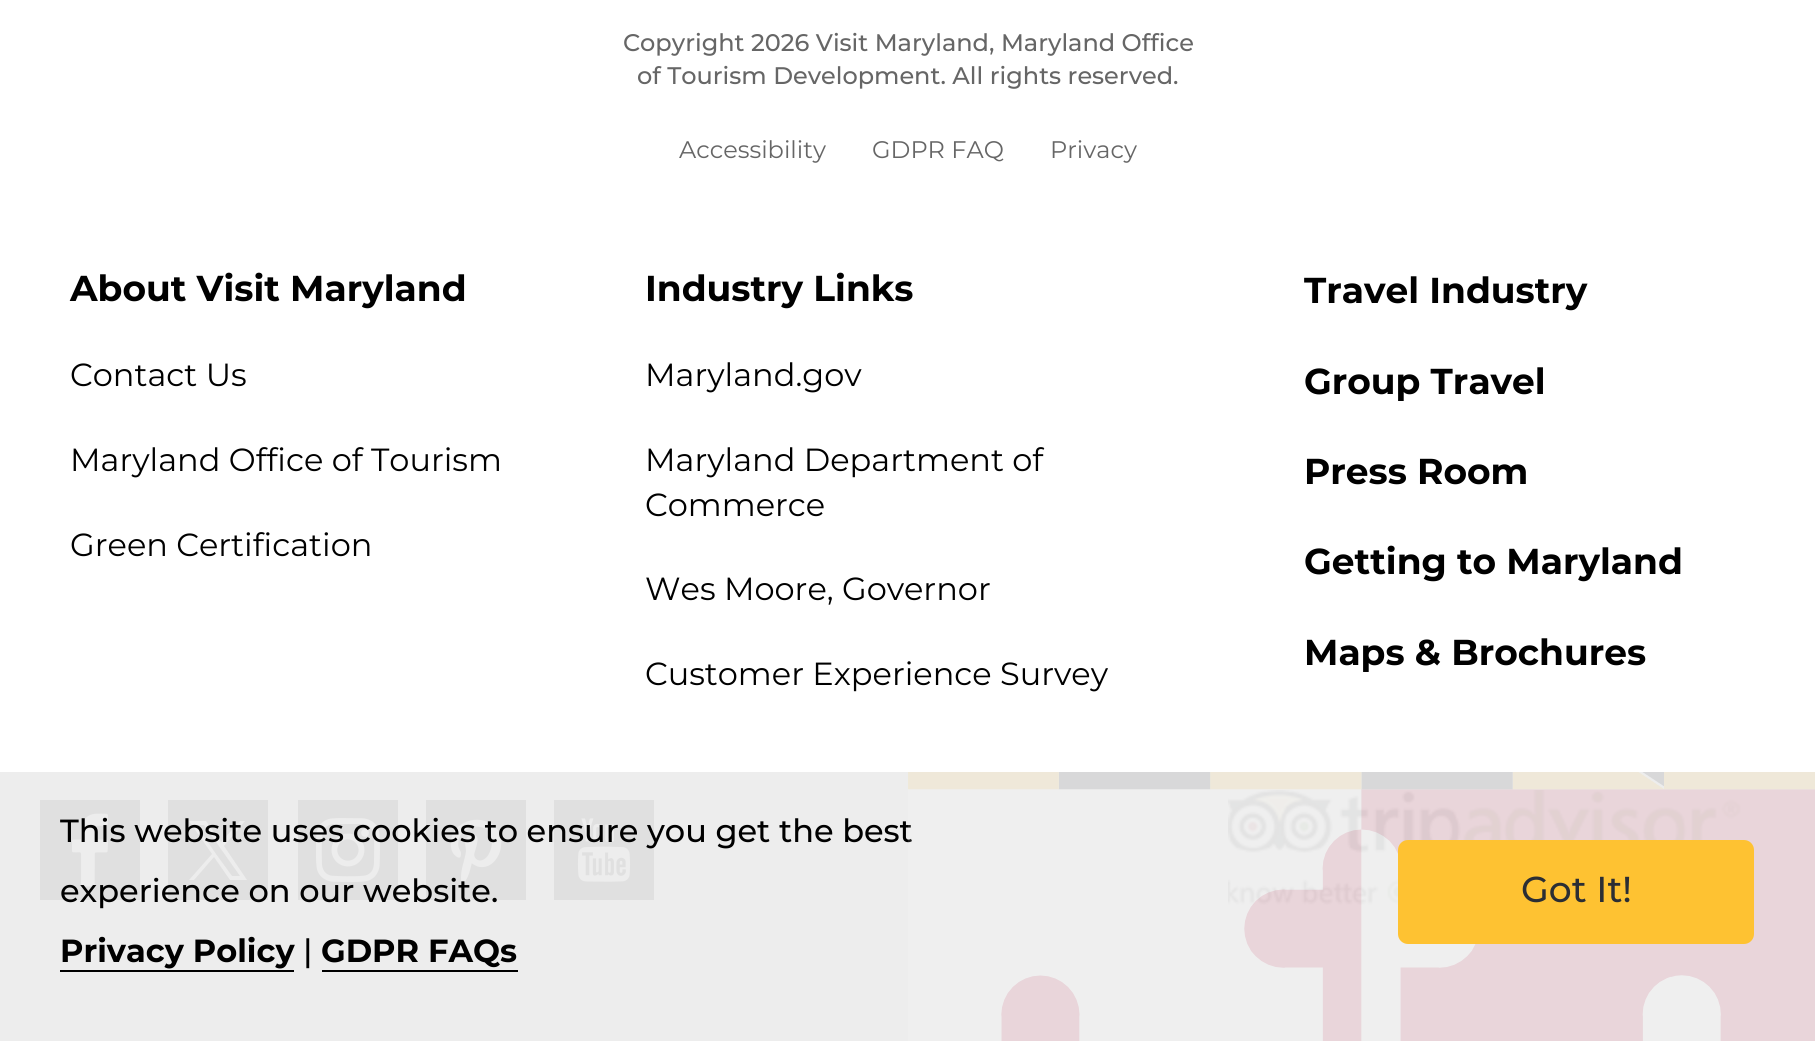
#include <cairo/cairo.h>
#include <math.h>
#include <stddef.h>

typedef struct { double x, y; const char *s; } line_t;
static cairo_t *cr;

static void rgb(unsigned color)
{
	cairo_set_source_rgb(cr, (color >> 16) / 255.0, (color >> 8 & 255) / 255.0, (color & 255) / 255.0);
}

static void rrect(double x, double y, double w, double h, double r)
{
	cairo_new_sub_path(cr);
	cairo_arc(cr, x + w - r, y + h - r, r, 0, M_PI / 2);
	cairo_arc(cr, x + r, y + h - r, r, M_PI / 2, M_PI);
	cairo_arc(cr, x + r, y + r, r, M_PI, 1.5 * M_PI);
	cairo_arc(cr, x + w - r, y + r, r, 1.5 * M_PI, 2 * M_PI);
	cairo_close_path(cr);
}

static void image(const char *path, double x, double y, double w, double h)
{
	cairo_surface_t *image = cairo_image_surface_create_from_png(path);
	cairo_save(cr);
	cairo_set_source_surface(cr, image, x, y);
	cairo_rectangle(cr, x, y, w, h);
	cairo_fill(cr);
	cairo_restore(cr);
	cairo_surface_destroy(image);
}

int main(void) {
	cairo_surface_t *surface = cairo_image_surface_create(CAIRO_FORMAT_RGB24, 1815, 1041);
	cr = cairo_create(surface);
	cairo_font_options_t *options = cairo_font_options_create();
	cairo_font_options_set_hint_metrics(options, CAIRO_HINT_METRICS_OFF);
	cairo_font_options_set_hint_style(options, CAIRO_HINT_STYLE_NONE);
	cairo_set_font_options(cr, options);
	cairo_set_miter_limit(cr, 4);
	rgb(0xffffff);
	cairo_paint(cr);
	rgb(0xededed);
	cairo_rectangle(cr, 0, 772, 1815, 269);
	cairo_fill(cr);
	image("img/1.png", 40, 800, 100, 100);
	rgb(0xe0e0e0);
	cairo_rectangle(cr, 168, 800, 100, 100);
	cairo_fill(cr);
	rgb(0xededed);
	cairo_new_path(cr);
	cairo_move_to(cr, 224, 846);
	cairo_line_to(cr, 245, 821);
	cairo_line_to(cr, 240, 821);
	cairo_line_to(cr, 221, 842);
	cairo_line_to(cr, 206, 821);
	cairo_line_to(cr, 189, 821);
	cairo_line_to(cr, 212, 854);
	cairo_line_to(cr, 189, 880);
	cairo_line_to(cr, 194, 880);
	cairo_line_to(cr, 214, 857);
	cairo_line_to(cr, 230, 880);
	cairo_line_to(cr, 247, 880);
	cairo_close_path(cr);
	cairo_move_to(cr, 216, 854);
	cairo_line_to(cr, 196, 825);
	cairo_line_to(cr, 204, 825);
	cairo_line_to(cr, 240, 876);
	cairo_line_to(cr, 232, 876);
	cairo_close_path(cr);
	cairo_fill(cr);
	image("img/2.png", 298, 800, 100, 100);
	image("img/3.png", 426, 800, 100, 100);
	image("img/4.png", 554, 800, 100, 100);
	image("img/5.png", 1228, 790, 513, 120);
	rgb(0x000000);
	cairo_rectangle(cr, 60, 970, 234, 2);
	cairo_fill(cr);
	cairo_rectangle(cr, 322, 970, 196, 2);
	cairo_fill(cr);
	cairo_select_font_face(cr, "Montserrat Medium", CAIRO_FONT_SLANT_NORMAL, CAIRO_FONT_WEIGHT_NORMAL);
	cairo_set_font_size(cr, 24);
	rgb(0x666666);
	cairo_move_to(cr, 623, 51);
	cairo_show_text(cr, "Copyright 2026 Visit Maryland, Maryland Office");
	cairo_move_to(cr, 637, 84);
	cairo_show_text(cr, "of Tourism Development. All rights reserved.");
	cairo_select_font_face(cr, "Montserrat", CAIRO_FONT_SLANT_NORMAL, CAIRO_FONT_WEIGHT_NORMAL);
	{
		static const line_t items[] = {
			{679, 158, "Accessibility"},
			{872, 158, "GDPR FAQ"},
			{1050, 158, "Privacy"},
		};
		for (size_t i = 0; i < sizeof items / sizeof *items; i++) {
			cairo_move_to(cr, items[i].x, items[i].y);
			cairo_show_text(cr, items[i].s);
		}
	}
	cairo_select_font_face(cr, "Montserrat", CAIRO_FONT_SLANT_NORMAL, CAIRO_FONT_WEIGHT_BOLD);
	cairo_set_font_size(cr, 36);
	rgb(0x000000);
	cairo_move_to(cr, 70, 301);
	cairo_show_text(cr, "About Visit Maryland");
	cairo_select_font_face(cr, "Montserrat", CAIRO_FONT_SLANT_NORMAL, CAIRO_FONT_WEIGHT_NORMAL);
	cairo_set_font_size(cr, 32);
	{
		static const line_t items[] = {
			{70, 386, "Contact Us"},
			{70, 471, "Maryland Office of Tourism"},
			{70, 556, "Green Certification"},
		};
		for (size_t i = 0; i < sizeof items / sizeof *items; i++) {
			cairo_move_to(cr, items[i].x, items[i].y);
			cairo_show_text(cr, items[i].s);
		}
	}
	cairo_select_font_face(cr, "Montserrat", CAIRO_FONT_SLANT_NORMAL, CAIRO_FONT_WEIGHT_BOLD);
	cairo_set_font_size(cr, 36);
	cairo_move_to(cr, 645, 301);
	cairo_show_text(cr, "Industry Links");
	cairo_select_font_face(cr, "Montserrat", CAIRO_FONT_SLANT_NORMAL, CAIRO_FONT_WEIGHT_NORMAL);
	cairo_set_font_size(cr, 32);
	{
		static const line_t items[] = {
			{645, 386, "Maryland.gov"},
			{645, 471, "Maryland Department of"},
			{645, 516, "Commerce"},
			{645, 600, "Wes Moore, Governor"},
			{645, 685, "Customer Experience Survey"},
		};
		for (size_t i = 0; i < sizeof items / sizeof *items; i++) {
			cairo_move_to(cr, items[i].x, items[i].y);
			cairo_show_text(cr, items[i].s);
		}
	}
	cairo_select_font_face(cr, "Montserrat", CAIRO_FONT_SLANT_NORMAL, CAIRO_FONT_WEIGHT_BOLD);
	cairo_set_font_size(cr, 36);
	{
		static const line_t items[] = {
			{1304, 303, "Travel Industry"},
			{1304, 394, "Group Travel"},
			{1304, 484, "Press Room"},
			{1304, 574, "Getting to Maryland"},
			{1304, 665, "Maps & Brochures"},
		};
		for (size_t i = 0; i < sizeof items / sizeof *items; i++) {
			cairo_move_to(cr, items[i].x, items[i].y);
			cairo_show_text(cr, items[i].s);
		}
	}
	cairo_select_font_face(cr, "Montserrat Medium", CAIRO_FONT_SLANT_NORMAL, CAIRO_FONT_WEIGHT_NORMAL);
	cairo_set_font_size(cr, 32);
	cairo_move_to(cr, 60, 842);
	cairo_show_text(cr, "This website uses cookies to ensure you get the best");
	image("img/6.png", 908, 772, 907, 269);
	cairo_move_to(cr, 60, 902);
	cairo_show_text(cr, "experience on our website.");
	cairo_select_font_face(cr, "Montserrat", CAIRO_FONT_SLANT_NORMAL, CAIRO_FONT_WEIGHT_BOLD);
	cairo_move_to(cr, 60, 962);
	cairo_show_text(cr, "Privacy Policy");
	cairo_select_font_face(cr, "Montserrat Medium", CAIRO_FONT_SLANT_NORMAL, CAIRO_FONT_WEIGHT_NORMAL);
	cairo_move_to(cr, 303, 962);
	cairo_show_text(cr, "|");
	cairo_select_font_face(cr, "Montserrat", CAIRO_FONT_SLANT_NORMAL, CAIRO_FONT_WEIGHT_BOLD);
	cairo_move_to(cr, 321, 962);
	cairo_show_text(cr, "GDPR FAQs");
	rgb(0xfec232);
	rrect(1398, 840, 356, 104, 10);
	cairo_fill(cr);
	cairo_select_font_face(cr, "Montserrat Medium", CAIRO_FONT_SLANT_NORMAL, CAIRO_FONT_WEIGHT_NORMAL);
	cairo_set_font_size(cr, 36);
	rgb(0x2b2e34);
	cairo_move_to(cr, 1521, 902);
	cairo_show_text(cr, "Got It!");
	cairo_surface_write_to_png(surface, "page.png");
	cairo_font_options_destroy(options);
	cairo_destroy(cr);
	cairo_surface_destroy(surface);
	return 0;
}
